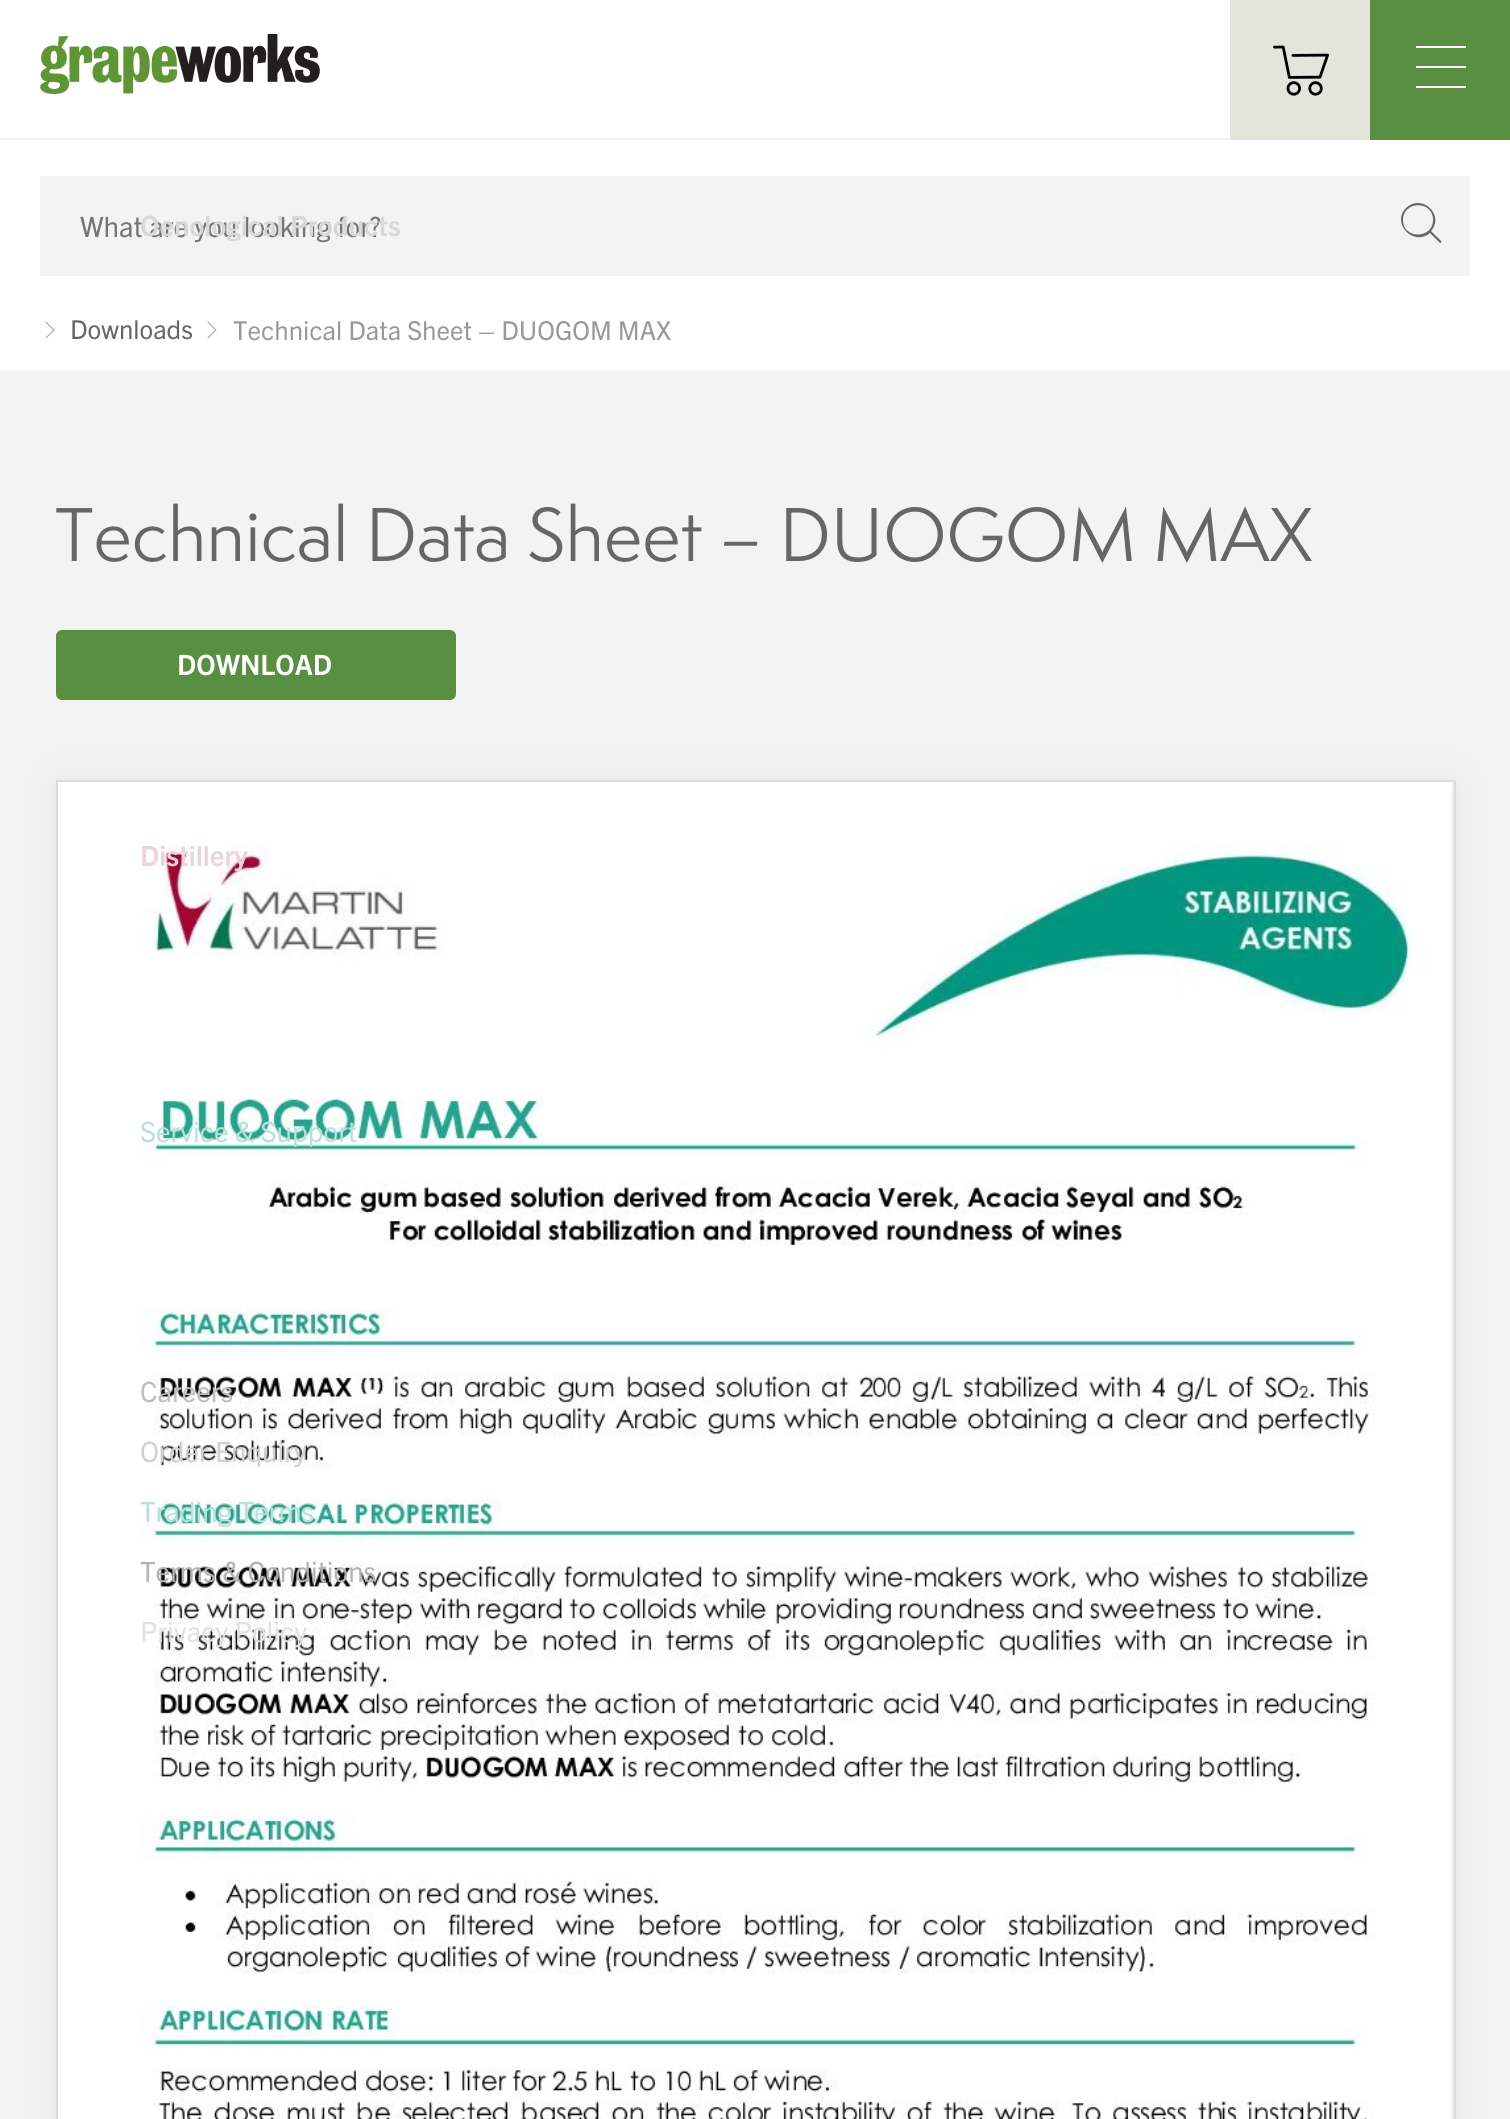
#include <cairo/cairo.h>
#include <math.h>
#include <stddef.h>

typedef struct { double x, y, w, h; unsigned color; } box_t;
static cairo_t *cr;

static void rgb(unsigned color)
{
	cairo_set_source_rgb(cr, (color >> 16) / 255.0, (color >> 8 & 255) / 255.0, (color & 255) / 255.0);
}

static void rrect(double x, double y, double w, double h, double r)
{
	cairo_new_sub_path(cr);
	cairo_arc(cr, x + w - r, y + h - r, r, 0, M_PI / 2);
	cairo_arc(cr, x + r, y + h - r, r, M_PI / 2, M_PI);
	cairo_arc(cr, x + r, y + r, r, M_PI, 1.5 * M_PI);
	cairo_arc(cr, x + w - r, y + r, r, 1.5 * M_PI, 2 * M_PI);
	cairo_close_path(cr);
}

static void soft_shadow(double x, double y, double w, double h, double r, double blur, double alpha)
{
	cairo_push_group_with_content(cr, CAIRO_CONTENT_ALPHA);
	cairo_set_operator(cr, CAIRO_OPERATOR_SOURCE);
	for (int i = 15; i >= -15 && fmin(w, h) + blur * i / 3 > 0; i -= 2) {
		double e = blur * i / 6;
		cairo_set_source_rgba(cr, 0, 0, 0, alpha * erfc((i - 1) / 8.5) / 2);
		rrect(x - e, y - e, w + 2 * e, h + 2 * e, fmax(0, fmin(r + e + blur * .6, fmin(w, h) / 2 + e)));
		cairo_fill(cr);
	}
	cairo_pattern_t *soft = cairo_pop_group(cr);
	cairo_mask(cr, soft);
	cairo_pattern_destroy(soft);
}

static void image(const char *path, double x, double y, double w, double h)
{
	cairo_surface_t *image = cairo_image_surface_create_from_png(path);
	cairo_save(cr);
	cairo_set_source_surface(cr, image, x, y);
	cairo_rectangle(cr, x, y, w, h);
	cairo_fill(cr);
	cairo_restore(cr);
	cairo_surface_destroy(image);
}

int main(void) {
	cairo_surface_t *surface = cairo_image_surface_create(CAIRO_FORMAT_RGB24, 1510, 2119);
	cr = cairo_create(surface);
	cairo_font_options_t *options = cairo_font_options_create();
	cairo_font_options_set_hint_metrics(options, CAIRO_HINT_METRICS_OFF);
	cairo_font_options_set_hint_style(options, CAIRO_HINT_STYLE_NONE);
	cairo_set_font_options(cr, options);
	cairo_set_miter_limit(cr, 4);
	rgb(0xffffff);
	cairo_paint(cr);
	rgb(0xf1f1f1);
	cairo_rectangle(cr, 0, 138, 1230, 2);
	cairo_fill(cr);
	image("img/1.png", 40, 34, 280, 60);
	rgb(0xe3e5da);
	cairo_rectangle(cr, 1230, 0, 140, 140);
	cairo_fill(cr);
	image("img/2.png", 1273, 45, 56, 51);
	{
		static const box_t items[] = {
			{1370, 0, 140, 140, 0x588f40},
			{1416, 46, 50, 2, 0xffffff},
			{1416, 66, 50, 2, 0xffffff},
			{1416, 86, 50, 2, 0xffffff},
			{40, 176, 1430, 100, 0xf3f3f3},
		};
		for (size_t i = 0; i < sizeof items / sizeof *items; i++) {
			rgb(items[i].color);
			cairo_rectangle(cr, items[i].x, items[i].y, items[i].w, items[i].h);
			cairo_fill(cr);
		}
	}
	rgb(0x666666);
	cairo_new_path(cr);
	cairo_move_to(cr, 1441, 241);
	cairo_line_to(cr, 1431, 231);
	cairo_curve_to(cr, 1445, 215, 1422, 193, 1406, 208);
	cairo_curve_to(cr, 1391, 223, 1413, 247, 1430, 233);
	cairo_line_to(cr, 1440, 243);
	cairo_curve_to(cr, 1441, 243, 1442, 242, 1441, 241);
	cairo_close_path(cr);
	cairo_move_to(cr, 1403, 220);
	cairo_curve_to(cr, 1403, 201, 1432, 200, 1433, 219);
	cairo_curve_to(cr, 1434, 239, 1403, 240, 1403, 220);
	cairo_close_path(cr);
	cairo_fill(cr);
	image("img/3.png", 45, 321, 10, 18);
	image("img/3.png", 207, 321, 10, 18);
	rgb(0xf3f3f3);
	cairo_rectangle(cr, 0, 370, 1510, 1749);
	cairo_fill(cr);
	rgb(0x588f40);
	rrect(56, 630, 400, 70, 6);
	cairo_fill(cr);
	rgb(0x000000);
	soft_shadow(56, 780, 1400, 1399, 0, 20, 0.05);
	cairo_rectangle(cr, 57, 781, 1398, 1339);
	rgb(0xdcdcdc);
	cairo_stroke(cr);
	image("img/4.png", 58, 782, 1394, 1337);
	cairo_select_font_face(cr, "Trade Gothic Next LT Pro", CAIRO_FONT_SLANT_NORMAL, CAIRO_FONT_WEIGHT_BOLD);
	cairo_set_font_size(cr, 28);
	rgb(0xedd4dc);
	cairo_move_to(cr, 140, 866);
	cairo_show_text(cr, "Distillery");
	cairo_select_font_face(cr, "Trade Gothic Next LT Pro", CAIRO_FONT_SLANT_NORMAL, CAIRO_FONT_WEIGHT_NORMAL);
	rgb(0xb8e1da);
	cairo_move_to(cr, 140, 1142);
	cairo_show_text(cr, "Service & Support");
	rgb(0xbfbfbf);
	cairo_move_to(cr, 140, 1402);
	cairo_show_text(cr, "Careers");
	rgb(0xd0d0d0);
	cairo_move_to(cr, 140, 1462);
	cairo_show_text(cr, "Order Enquiry");
	rgb(0xb8e1da);
	cairo_move_to(cr, 140, 1522);
	cairo_show_text(cr, "Trading Terms");
	rgb(0xb3b3b3);
	cairo_move_to(cr, 140, 1582);
	cairo_show_text(cr, "Terms & Conditions");
	rgb(0xe1e1e1);
	cairo_move_to(cr, 140, 1642);
	cairo_show_text(cr, "Privacy Policy");
	rgb(0x757575);
	cairo_move_to(cr, 80, 237);
	cairo_show_text(cr, "What are you looking for?");
	cairo_select_font_face(cr, "Trade Gothic Next LT Pro", CAIRO_FONT_SLANT_NORMAL, CAIRO_FONT_WEIGHT_BOLD);
	rgb(0xd8d8d8);
	cairo_move_to(cr, 140, 236);
	cairo_show_text(cr, "Oenological Products");
	cairo_select_font_face(cr, "Trade Gothic Next LT Pro", CAIRO_FONT_SLANT_NORMAL, CAIRO_FONT_WEIGHT_NORMAL);
	cairo_set_font_size(cr, 26);
	rgb(0x666666);
	cairo_move_to(cr, 70, 339);
	cairo_show_text(cr, "Downloads");
	rgb(0x999999);
	cairo_move_to(cr, 233, 340);
	cairo_show_text(cr, "Technical Data Sheet – DUOGOM MAX");
	cairo_select_font_face(cr, "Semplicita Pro", CAIRO_FONT_SLANT_NORMAL, CAIRO_FONT_WEIGHT_NORMAL);
	cairo_set_font_size(cr, 70);
	rgb(0x666666);
	cairo_move_to(cr, 55, 561);
	cairo_show_text(cr, "Technical Data Sheet – DUOGOM MAX");
	cairo_select_font_face(cr, "Trade Gothic Next LT Pro", CAIRO_FONT_SLANT_NORMAL, CAIRO_FONT_WEIGHT_BOLD);
	cairo_set_font_size(cr, 28);
	rgb(0xffffff);
	cairo_move_to(cr, 177, 675);
	cairo_show_text(cr, "DOWNLOAD");
	cairo_surface_write_to_png(surface, "page.png");
	cairo_font_options_destroy(options);
	cairo_destroy(cr);
	cairo_surface_destroy(surface);
	return 0;
}
